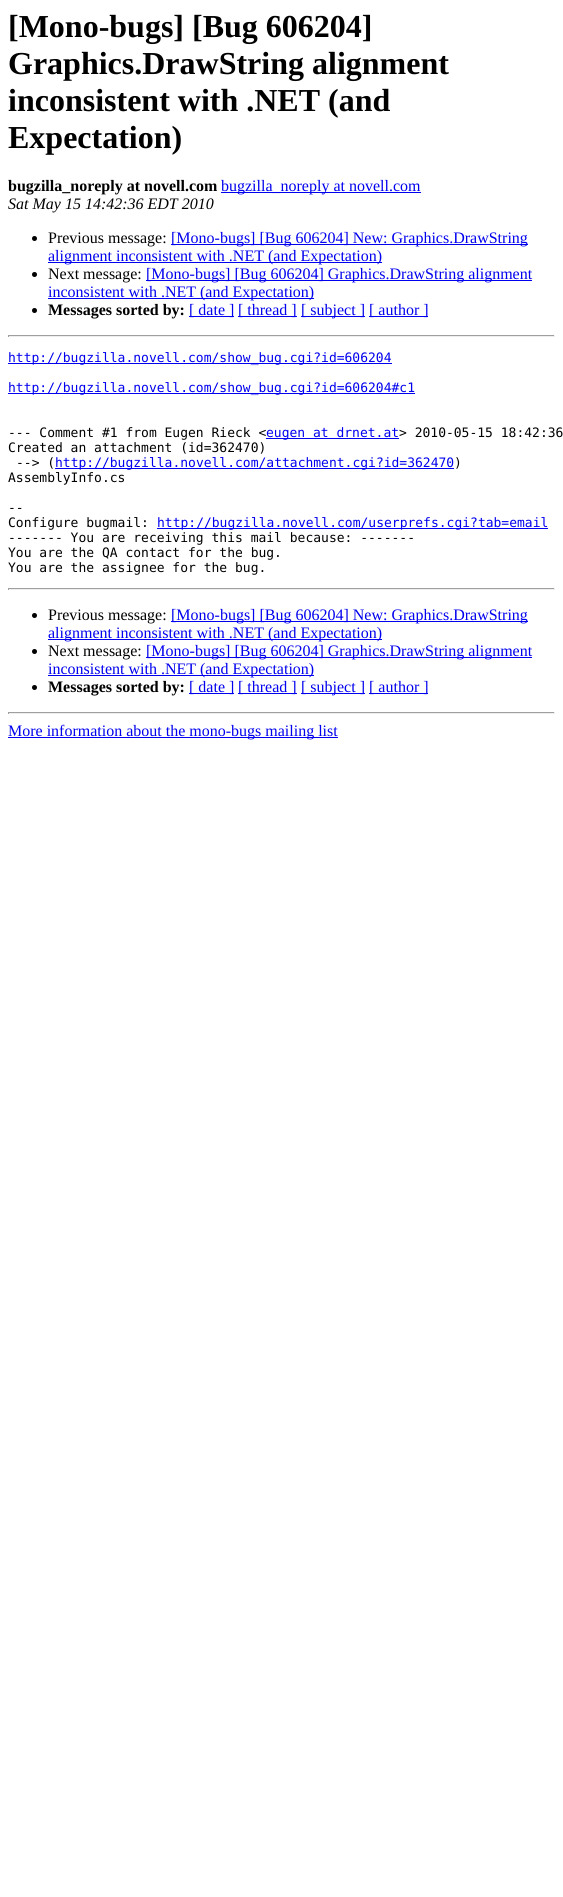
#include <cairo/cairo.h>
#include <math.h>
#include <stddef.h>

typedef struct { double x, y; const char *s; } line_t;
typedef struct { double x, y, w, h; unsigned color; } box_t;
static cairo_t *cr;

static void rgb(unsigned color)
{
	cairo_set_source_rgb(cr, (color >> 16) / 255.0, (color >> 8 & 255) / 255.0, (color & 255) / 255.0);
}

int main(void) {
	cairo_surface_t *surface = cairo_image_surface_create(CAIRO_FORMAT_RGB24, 563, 1897);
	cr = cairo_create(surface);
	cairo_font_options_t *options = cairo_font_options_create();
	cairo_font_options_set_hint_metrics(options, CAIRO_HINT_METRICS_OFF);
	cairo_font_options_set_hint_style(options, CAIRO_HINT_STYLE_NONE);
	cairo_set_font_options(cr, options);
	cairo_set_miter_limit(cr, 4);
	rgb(0xffffff);
	cairo_paint(cr);
	rgb(0x0000ee);
	cairo_rectangle(cr, 221, 192, 200, 1);
	cairo_fill(cr);
	rgb(0x000000);
	cairo_arc(cr, 34.5, 238.5, 2.5, 0, 2 * M_PI);
	cairo_fill(cr);
	rgb(0x0000ee);
	cairo_rectangle(cr, 171, 244, 357, 1);
	cairo_fill(cr);
	cairo_rectangle(cr, 48, 262, 334, 1);
	cairo_fill(cr);
	rgb(0x000000);
	cairo_arc(cr, 34.5, 274.5, 2.5, 0, 2 * M_PI);
	cairo_fill(cr);
	rgb(0x0000ee);
	cairo_rectangle(cr, 146, 280, 386, 1);
	cairo_fill(cr);
	cairo_rectangle(cr, 48, 298, 266, 1);
	cairo_fill(cr);
	rgb(0x000000);
	cairo_arc(cr, 34.5, 310.5, 2.5, 0, 2 * M_PI);
	cairo_fill(cr);
	{
		static const box_t items[] = {
			{189, 316, 45, 1, 0x0000ee},
			{238, 316, 59, 1, 0x0000ee},
			{301, 316, 64, 1, 0x0000ee},
			{369, 316, 59, 1, 0x0000ee},
			{8, 335, 547, 1, 0x9f9f9f},
			{554, 335, 1, 2, 0xeeeeee},
			{8, 336, 547, 1, 0xeeeeee},
			{8, 335, 1, 2, 0x9f9f9f},
			{8, 363, 384, 1, 0x0000ee},
			{8, 393, 407, 1, 0x0000ee},
			{266, 438, 133, 1, 0x0000ee},
			{55, 468, 399, 1, 0x0000ee},
			{157, 528, 391, 1, 0x0000ee},
			{8, 588, 547, 1, 0x9f9f9f},
			{554, 588, 1, 2, 0xeeeeee},
			{8, 589, 547, 1, 0xeeeeee},
			{8, 588, 1, 2, 0x9f9f9f},
		};
		for (size_t i = 0; i < sizeof items / sizeof *items; i++) {
			rgb(items[i].color);
			cairo_rectangle(cr, items[i].x, items[i].y, items[i].w, items[i].h);
			cairo_fill(cr);
		}
	}
	rgb(0x000000);
	cairo_arc(cr, 34.5, 615.5, 2.5, 0, 2 * M_PI);
	cairo_fill(cr);
	rgb(0x0000ee);
	cairo_rectangle(cr, 171, 621, 357, 1);
	cairo_fill(cr);
	cairo_rectangle(cr, 48, 639, 334, 1);
	cairo_fill(cr);
	rgb(0x000000);
	cairo_arc(cr, 34.5, 651.5, 2.5, 0, 2 * M_PI);
	cairo_fill(cr);
	rgb(0x0000ee);
	cairo_rectangle(cr, 146, 657, 386, 1);
	cairo_fill(cr);
	cairo_rectangle(cr, 48, 675, 266, 1);
	cairo_fill(cr);
	rgb(0x000000);
	cairo_arc(cr, 34.5, 687.5, 2.5, 0, 2 * M_PI);
	cairo_fill(cr);
	{
		static const box_t items[] = {
			{189, 693, 45, 1, 0x0000ee},
			{238, 693, 59, 1, 0x0000ee},
			{301, 693, 64, 1, 0x0000ee},
			{369, 693, 59, 1, 0x0000ee},
			{8, 712, 547, 1, 0x9f9f9f},
			{554, 712, 1, 2, 0xeeeeee},
			{8, 713, 547, 1, 0xeeeeee},
			{8, 712, 1, 2, 0x9f9f9f},
			{8, 737, 330, 1, 0x0000ee},
		};
		for (size_t i = 0; i < sizeof items / sizeof *items; i++) {
			rgb(items[i].color);
			cairo_rectangle(cr, items[i].x, items[i].y, items[i].w, items[i].h);
			cairo_fill(cr);
		}
	}
	cairo_select_font_face(cr, "Liberation Serif", CAIRO_FONT_SLANT_NORMAL, CAIRO_FONT_WEIGHT_BOLD);
	cairo_set_font_size(cr, 32);
	rgb(0x000000);
	{
		static const line_t items[] = {
			{8, 37, "[Mono-bugs] [Bug 606204]"},
			{8, 74, "Graphics.DrawString alignment"},
			{8, 111, "inconsistent with .NET (and"},
			{8, 148, "Expectation)"},
		};
		for (size_t i = 0; i < sizeof items / sizeof *items; i++) {
			cairo_move_to(cr, items[i].x, items[i].y);
			cairo_show_text(cr, items[i].s);
		}
	}
	cairo_set_font_size(cr, 16);
	cairo_move_to(cr, 8, 191);
	cairo_show_text(cr, "bugzilla_noreply at novell.com");
	cairo_select_font_face(cr, "Liberation Serif", CAIRO_FONT_SLANT_NORMAL, CAIRO_FONT_WEIGHT_NORMAL);
	rgb(0x0000ee);
	cairo_move_to(cr, 221, 191);
	cairo_show_text(cr, "bugzilla_noreply at novell.com");
	cairo_select_font_face(cr, "Liberation Serif", CAIRO_FONT_SLANT_ITALIC, CAIRO_FONT_WEIGHT_NORMAL);
	rgb(0x000000);
	cairo_move_to(cr, 8, 209);
	cairo_show_text(cr, "Sat May 15 14:42:36 EDT 2010");
	cairo_select_font_face(cr, "Liberation Serif", CAIRO_FONT_SLANT_NORMAL, CAIRO_FONT_WEIGHT_NORMAL);
	cairo_move_to(cr, 48, 243);
	cairo_show_text(cr, "Previous message:");
	rgb(0x0000ee);
	cairo_move_to(cr, 171, 243);
	cairo_show_text(cr, "[Mono-bugs] [Bug 606204] New: Graphics.DrawString");
	cairo_move_to(cr, 48, 261);
	cairo_show_text(cr, "alignment inconsistent with .NET (and Expectation)");
	rgb(0x000000);
	cairo_move_to(cr, 48, 279);
	cairo_show_text(cr, "Next message:");
	rgb(0x0000ee);
	cairo_move_to(cr, 146, 279);
	cairo_show_text(cr, "[Mono-bugs] [Bug 606204] Graphics.DrawString alignment");
	cairo_move_to(cr, 48, 297);
	cairo_show_text(cr, "inconsistent with .NET (and Expectation)");
	cairo_select_font_face(cr, "Liberation Serif", CAIRO_FONT_SLANT_NORMAL, CAIRO_FONT_WEIGHT_BOLD);
	rgb(0x000000);
	cairo_move_to(cr, 48, 315);
	cairo_show_text(cr, "Messages sorted by:");
	cairo_select_font_face(cr, "Liberation Serif", CAIRO_FONT_SLANT_NORMAL, CAIRO_FONT_WEIGHT_NORMAL);
	rgb(0x0000ee);
	{
		static const line_t items[] = {
			{189, 315, "[ date ]"},
			{238, 315, "[ thread ]"},
			{301, 315, "[ subject ]"},
			{369, 315, "[ author ]"},
		};
		for (size_t i = 0; i < sizeof items / sizeof *items; i++) {
			cairo_move_to(cr, items[i].x, items[i].y);
			cairo_show_text(cr, items[i].s);
		}
	}
	cairo_select_font_face(cr, "DejaVu Sans Mono", CAIRO_FONT_SLANT_NORMAL, CAIRO_FONT_WEIGHT_NORMAL);
	cairo_set_font_size(cr, 13);
	cairo_move_to(cr, 8, 362);
	cairo_show_text(cr, "http://bugzilla.novell.com/show_bug.cgi?id=606204");
	cairo_move_to(cr, 8, 392);
	cairo_show_text(cr, "http://bugzilla.novell.com/show_bug.cgi?id=606204#c1");
	rgb(0x000000);
	cairo_move_to(cr, 8, 437);
	cairo_show_text(cr, "--- Comment #1 from Eugen Rieck <");
	rgb(0x0000ee);
	cairo_move_to(cr, 266, 437);
	cairo_show_text(cr, "eugen at drnet.at");
	rgb(0x000000);
	{
		static const line_t items[] = {
			{399, 437, "> 2010-05-15 18:42:36"},
			{8, 452, "Created an attachment (id=362470)"},
			{16, 467, "--> ("},
		};
		for (size_t i = 0; i < sizeof items / sizeof *items; i++) {
			cairo_move_to(cr, items[i].x, items[i].y);
			cairo_show_text(cr, items[i].s);
		}
	}
	rgb(0x0000ee);
	cairo_move_to(cr, 55, 467);
	cairo_show_text(cr, "http://bugzilla.novell.com/attachment.cgi?id=362470");
	rgb(0x000000);
	{
		static const line_t items[] = {
			{454, 467, ")"},
			{8, 482, "AssemblyInfo.cs"},
			{8, 512, "--"},
			{8, 527, "Configure bugmail:"},
		};
		for (size_t i = 0; i < sizeof items / sizeof *items; i++) {
			cairo_move_to(cr, items[i].x, items[i].y);
			cairo_show_text(cr, items[i].s);
		}
	}
	rgb(0x0000ee);
	cairo_move_to(cr, 157, 527);
	cairo_show_text(cr, "http://bugzilla.novell.com/userprefs.cgi?tab=email");
	rgb(0x000000);
	{
		static const line_t items[] = {
			{8, 542, "------- You are receiving this mail because: -------"},
			{8, 557, "You are the QA contact for the bug."},
			{8, 572, "You are the assignee for the bug."},
		};
		for (size_t i = 0; i < sizeof items / sizeof *items; i++) {
			cairo_move_to(cr, items[i].x, items[i].y);
			cairo_show_text(cr, items[i].s);
		}
	}
	cairo_select_font_face(cr, "Liberation Serif", CAIRO_FONT_SLANT_NORMAL, CAIRO_FONT_WEIGHT_NORMAL);
	cairo_set_font_size(cr, 16);
	cairo_move_to(cr, 48, 620);
	cairo_show_text(cr, "Previous message:");
	rgb(0x0000ee);
	cairo_move_to(cr, 171, 620);
	cairo_show_text(cr, "[Mono-bugs] [Bug 606204] New: Graphics.DrawString");
	cairo_move_to(cr, 48, 638);
	cairo_show_text(cr, "alignment inconsistent with .NET (and Expectation)");
	rgb(0x000000);
	cairo_move_to(cr, 48, 656);
	cairo_show_text(cr, "Next message:");
	rgb(0x0000ee);
	cairo_move_to(cr, 146, 656);
	cairo_show_text(cr, "[Mono-bugs] [Bug 606204] Graphics.DrawString alignment");
	cairo_move_to(cr, 48, 674);
	cairo_show_text(cr, "inconsistent with .NET (and Expectation)");
	cairo_select_font_face(cr, "Liberation Serif", CAIRO_FONT_SLANT_NORMAL, CAIRO_FONT_WEIGHT_BOLD);
	rgb(0x000000);
	cairo_move_to(cr, 48, 692);
	cairo_show_text(cr, "Messages sorted by:");
	cairo_select_font_face(cr, "Liberation Serif", CAIRO_FONT_SLANT_NORMAL, CAIRO_FONT_WEIGHT_NORMAL);
	rgb(0x0000ee);
	{
		static const line_t items[] = {
			{189, 692, "[ date ]"},
			{238, 692, "[ thread ]"},
			{301, 692, "[ subject ]"},
			{369, 692, "[ author ]"},
			{8, 736, "More information about the mono-bugs mailing list"},
		};
		for (size_t i = 0; i < sizeof items / sizeof *items; i++) {
			cairo_move_to(cr, items[i].x, items[i].y);
			cairo_show_text(cr, items[i].s);
		}
	}
	cairo_surface_write_to_png(surface, "page.png");
	cairo_font_options_destroy(options);
	cairo_destroy(cr);
	cairo_surface_destroy(surface);
	return 0;
}
